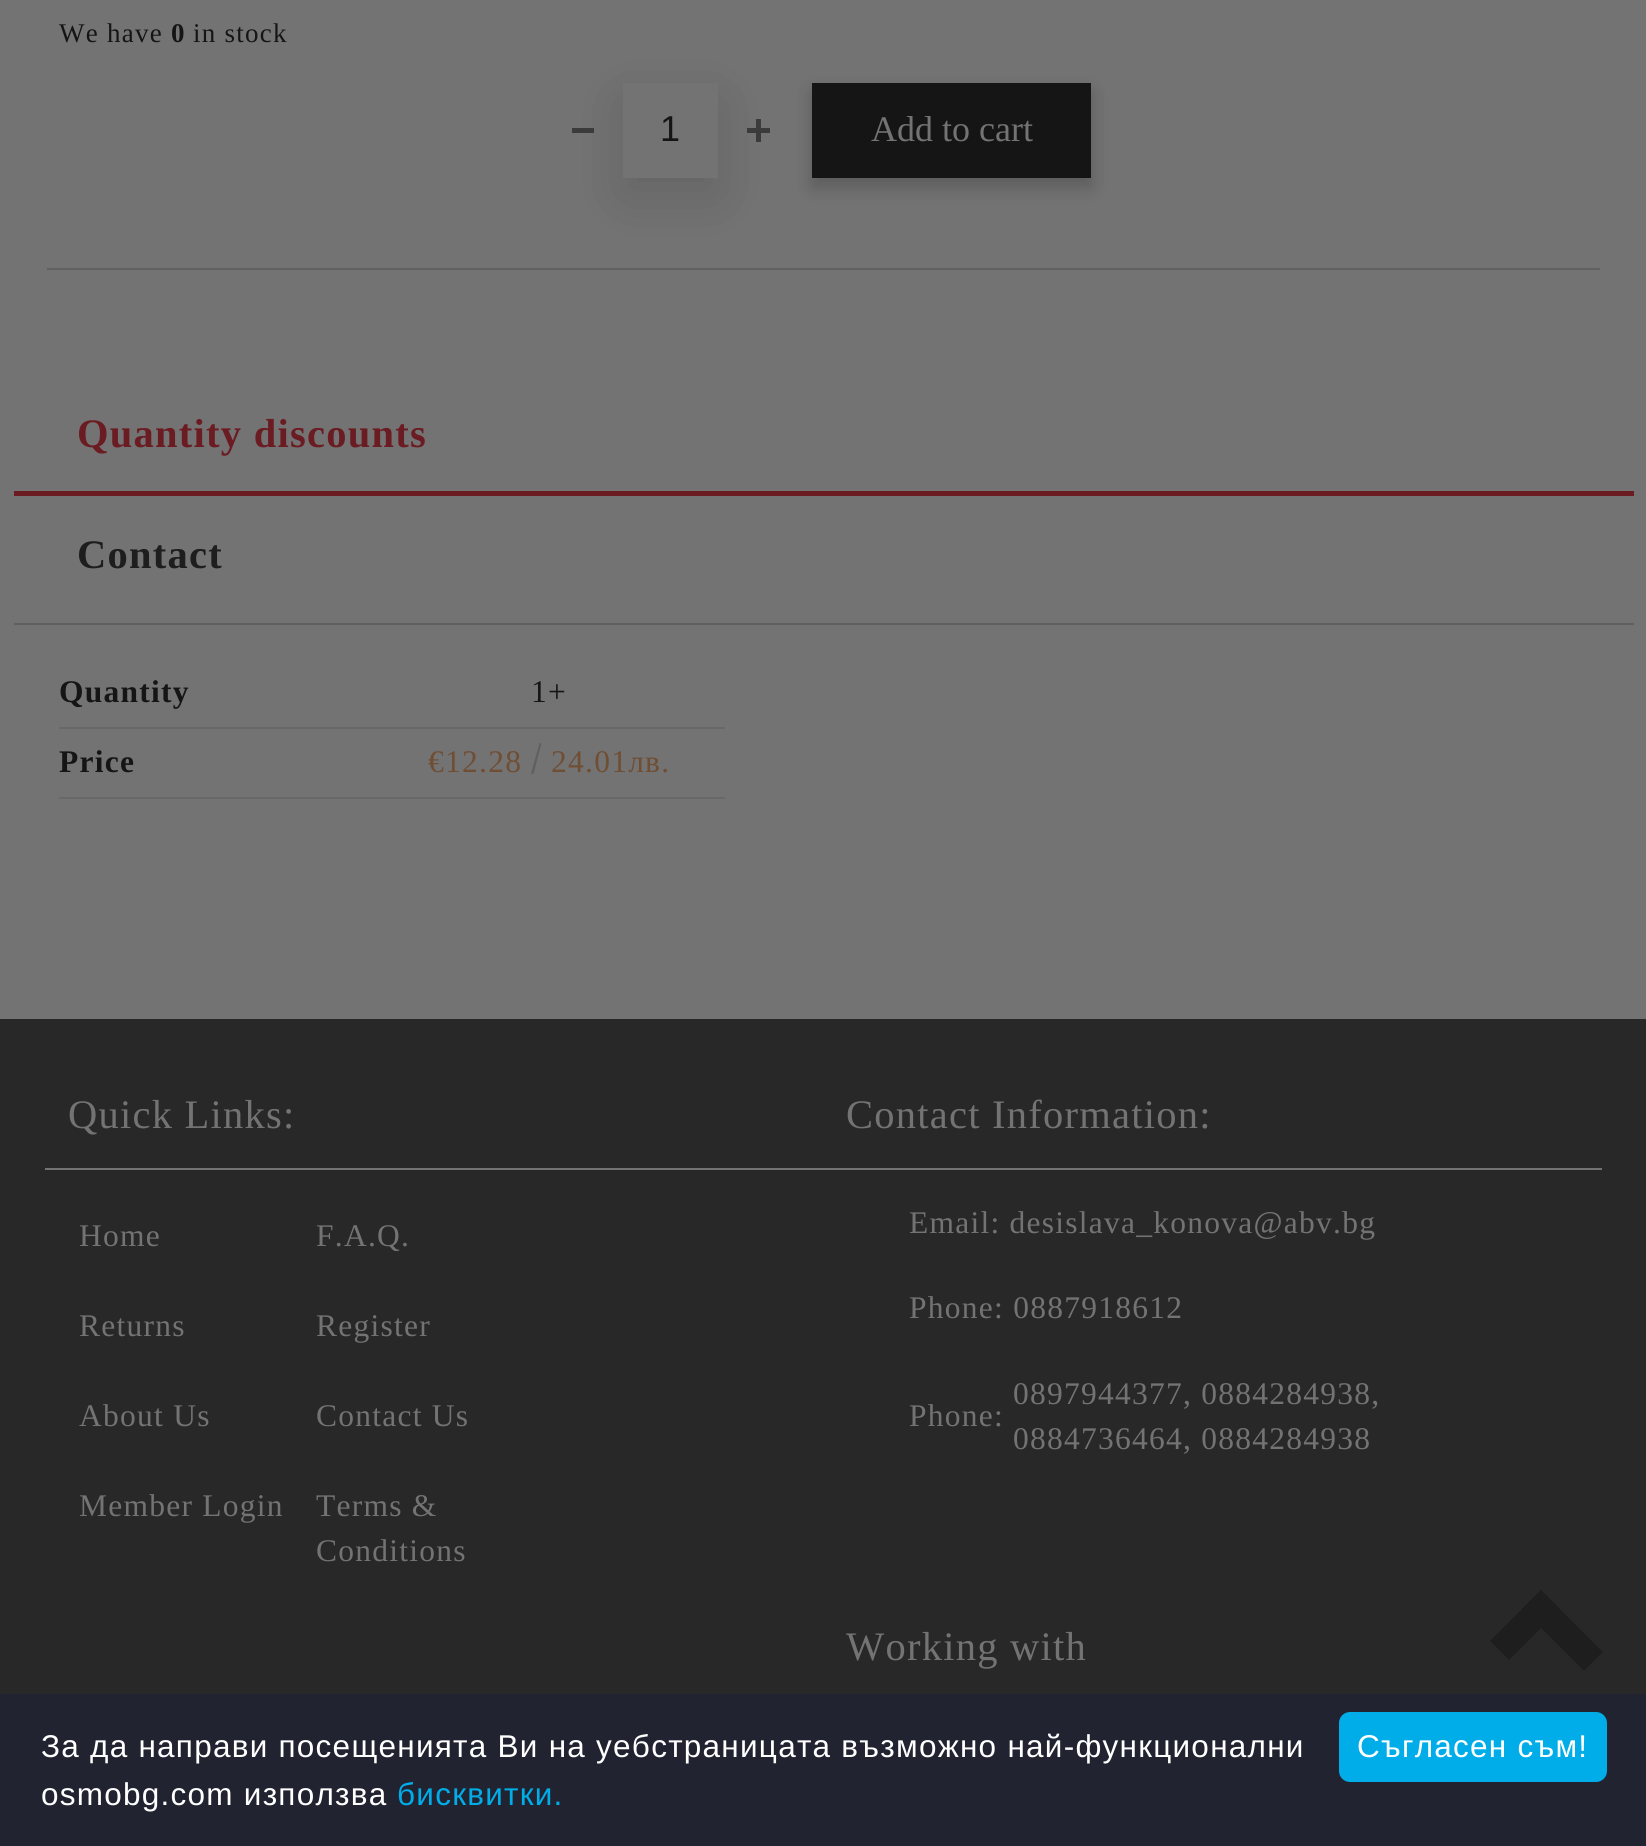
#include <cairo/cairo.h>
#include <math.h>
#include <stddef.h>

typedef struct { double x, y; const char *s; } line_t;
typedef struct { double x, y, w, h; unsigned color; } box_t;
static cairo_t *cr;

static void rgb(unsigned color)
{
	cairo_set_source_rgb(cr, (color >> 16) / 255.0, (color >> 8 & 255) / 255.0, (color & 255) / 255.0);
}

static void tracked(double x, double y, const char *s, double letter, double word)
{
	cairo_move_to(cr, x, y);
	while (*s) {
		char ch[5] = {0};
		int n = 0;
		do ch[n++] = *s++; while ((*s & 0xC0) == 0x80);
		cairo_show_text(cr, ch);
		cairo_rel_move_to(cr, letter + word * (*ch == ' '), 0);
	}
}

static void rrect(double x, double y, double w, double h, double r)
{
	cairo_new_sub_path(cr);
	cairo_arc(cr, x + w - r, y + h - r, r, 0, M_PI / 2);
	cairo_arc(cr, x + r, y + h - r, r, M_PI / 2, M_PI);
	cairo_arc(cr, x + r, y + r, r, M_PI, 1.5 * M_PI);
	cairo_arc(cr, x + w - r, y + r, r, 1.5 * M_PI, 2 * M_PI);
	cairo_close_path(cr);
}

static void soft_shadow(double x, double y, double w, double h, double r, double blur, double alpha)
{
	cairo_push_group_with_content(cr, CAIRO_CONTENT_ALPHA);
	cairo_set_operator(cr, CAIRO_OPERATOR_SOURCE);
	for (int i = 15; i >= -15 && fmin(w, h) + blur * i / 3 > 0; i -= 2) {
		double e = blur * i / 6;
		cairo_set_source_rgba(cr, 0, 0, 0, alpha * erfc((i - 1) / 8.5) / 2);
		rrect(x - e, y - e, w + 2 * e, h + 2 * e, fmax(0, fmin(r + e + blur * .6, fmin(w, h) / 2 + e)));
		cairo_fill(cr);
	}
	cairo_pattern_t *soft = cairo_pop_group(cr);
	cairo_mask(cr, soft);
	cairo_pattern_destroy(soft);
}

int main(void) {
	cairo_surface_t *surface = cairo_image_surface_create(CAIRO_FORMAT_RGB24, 1646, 1846);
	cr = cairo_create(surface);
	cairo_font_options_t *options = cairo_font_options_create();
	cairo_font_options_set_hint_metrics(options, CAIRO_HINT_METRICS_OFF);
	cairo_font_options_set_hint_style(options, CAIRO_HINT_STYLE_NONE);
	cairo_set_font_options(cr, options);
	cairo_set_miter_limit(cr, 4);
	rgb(0x737373);
	cairo_paint(cr);
	rgb(0x151515);
	soft_shadow(623, 101, 95, 95, 0, 27, 0.16);
	{
		static const box_t items[] = {
			{572, 128, 22, 5, 0x3b3b3b},
			{623, 83, 95, 95, 0x737373},
			{747, 128, 23, 5, 0x3b3b3b},
			{756, 119, 5, 23, 0x3b3b3b},
		};
		for (size_t i = 0; i < sizeof items / sizeof *items; i++) {
			rgb(items[i].color);
			cairo_rectangle(cr, items[i].x, items[i].y, items[i].w, items[i].h);
			cairo_fill(cr);
		}
	}
	rgb(0x151515);
	soft_shadow(812, 92, 279, 95, 0, 9, 0.26);
	{
		static const box_t items[] = {
			{812, 83, 279, 95, 0x151515},
			{47, 268, 1553, 2, 0x606060},
			{14, 623, 1620, 2, 0x606060},
			{14, 491, 1620, 5, 0x6b1b22},
			{59, 727, 666, 2, 0x686868},
			{59, 797, 666, 2, 0x686868},
		};
		for (size_t i = 0; i < sizeof items / sizeof *items; i++) {
			rgb(items[i].color);
			cairo_rectangle(cr, items[i].x, items[i].y, items[i].w, items[i].h);
			cairo_fill(cr);
		}
	}
	rgb(0x606060);
	cairo_new_path(cr);
	cairo_move_to(cr, 539.5, 743);
	cairo_line_to(cr, 541.5, 743.5);
	cairo_line_to(cr, 533.5, 774);
	cairo_line_to(cr, 531, 773.5);
	cairo_close_path(cr);
	cairo_fill(cr);
	rgb(0x282828);
	cairo_rectangle(cr, 0, 1019, 1646, 675);
	cairo_fill(cr);
	rgb(0x737373);
	cairo_rectangle(cr, 45, 1168, 1557, 2);
	cairo_fill(cr);
	rgb(0x1e1e1e);
	cairo_new_path(cr);
	cairo_move_to(cr, 1509, 1660);
	cairo_line_to(cr, 1490, 1641);
	cairo_line_to(cr, 1541, 1590);
	cairo_line_to(cr, 1560, 1609);
	cairo_close_path(cr);
	cairo_fill(cr);
	cairo_new_path(cr);
	cairo_move_to(cr, 1584, 1671);
	cairo_line_to(cr, 1522, 1609);
	cairo_line_to(cr, 1541, 1590);
	cairo_line_to(cr, 1603, 1652);
	cairo_close_path(cr);
	cairo_fill(cr);
	rgb(0x212331);
	cairo_rectangle(cr, 0, 1694, 1646, 152);
	cairo_fill(cr);
	rgb(0x00ade8);
	rrect(1339, 1712, 268, 70, 11);
	cairo_fill(cr);
	cairo_select_font_face(cr, "Liberation Serif", CAIRO_FONT_SLANT_NORMAL, CAIRO_FONT_WEIGHT_NORMAL);
	cairo_set_font_size(cr, 27);
	rgb(0x151515);
	tracked(59, 42, "We have", 1.25, 0);
	cairo_select_font_face(cr, "Liberation Serif", CAIRO_FONT_SLANT_NORMAL, CAIRO_FONT_WEIGHT_BOLD);
	tracked(171, 42, "0", 1.25, 0);
	cairo_select_font_face(cr, "Liberation Serif", CAIRO_FONT_SLANT_NORMAL, CAIRO_FONT_WEIGHT_NORMAL);
	tracked(193, 42, "in stock", 1.25, 0);
	cairo_select_font_face(cr, "Liberation Sans", CAIRO_FONT_SLANT_NORMAL, CAIRO_FONT_WEIGHT_NORMAL);
	cairo_set_font_size(cr, 36);
	cairo_move_to(cr, 660, 141);
	cairo_show_text(cr, "1");
	cairo_select_font_face(cr, "Liberation Serif", CAIRO_FONT_SLANT_NORMAL, CAIRO_FONT_WEIGHT_NORMAL);
	rgb(0x737373);
	cairo_move_to(cr, 871, 141);
	cairo_show_text(cr, "Add to cart");
	cairo_select_font_face(cr, "Liberation Serif", CAIRO_FONT_SLANT_NORMAL, CAIRO_FONT_WEIGHT_BOLD);
	cairo_set_font_size(cr, 40.5);
	rgb(0x6b1b22);
	tracked(77, 447, "Quantity discounts", 1.25, 0);
	rgb(0x1e1e1e);
	tracked(77, 568, "Contact", 1.25, 0);
	cairo_set_font_size(cr, 31.5);
	rgb(0x151515);
	tracked(59, 702, "Quantity", 1.25, 0);
	cairo_select_font_face(cr, "Liberation Serif", CAIRO_FONT_SLANT_NORMAL, CAIRO_FONT_WEIGHT_NORMAL);
	tracked(531, 702, "1+", 1.25, 0);
	cairo_select_font_face(cr, "Liberation Serif", CAIRO_FONT_SLANT_NORMAL, CAIRO_FONT_WEIGHT_BOLD);
	tracked(59, 772, "Price", 1.25, 0);
	cairo_select_font_face(cr, "Liberation Serif", CAIRO_FONT_SLANT_NORMAL, CAIRO_FONT_WEIGHT_NORMAL);
	rgb(0x704e34);
	tracked(428, 772, "€12.28", 1.25, 0);
	tracked(551, 772, "24.01лв.", 1.25, 0);
	cairo_set_font_size(cr, 40.5);
	rgb(0x737373);
	tracked(68, 1128, "Quick Links:", 1.25, 0);
	cairo_set_font_size(cr, 31.5);
	{
		static const line_t items[] = {
			{79, 1246, "Home"},
			{79, 1336, "Returns"},
			{79, 1426, "About Us"},
			{79, 1516, "Member Login"},
			{316, 1246, "F.A.Q."},
			{316, 1336, "Register"},
			{316, 1426, "Contact Us"},
			{316, 1516, "Terms &"},
			{316, 1561, "Conditions"},
		};
		for (size_t i = 0; i < sizeof items / sizeof *items; i++) {
			tracked(items[i].x, items[i].y, items[i].s, 1.25, 0);
		}
	}
	cairo_set_font_size(cr, 40.5);
	tracked(846, 1128, "Contact Information:", 1.25, 0);
	cairo_set_font_size(cr, 31.5);
	{
		static const line_t items[] = {
			{909, 1233, "Email: desislava_konova@abv.bg"},
			{909, 1318, "Phone: 0887918612"},
			{909, 1426, "Phone:"},
			{1013, 1404, "0897944377, 0884284938,"},
			{1013, 1449, "0884736464, 0884284938"},
		};
		for (size_t i = 0; i < sizeof items / sizeof *items; i++) {
			tracked(items[i].x, items[i].y, items[i].s, 1.25, 0);
		}
	}
	cairo_set_font_size(cr, 40.5);
	tracked(846, 1660, "Working with", 1.25, 0);
	cairo_select_font_face(cr, "Liberation Sans", CAIRO_FONT_SLANT_NORMAL, CAIRO_FONT_WEIGHT_NORMAL);
	cairo_set_font_size(cr, 31.5);
	rgb(0xffffff);
	tracked(41, 1757, "За да направи посещенията Ви на уебстраницата възможно най-функционални", 1.25, 0);
	tracked(41, 1805, "osmobg.com използва", 1.25, 0);
	rgb(0x00ade8);
	tracked(397, 1805, "бисквитки.", 1.25, 0);
	rgb(0xffffff);
	tracked(1357, 1757, "Съгласен съм!", 1.25, 0);
	cairo_surface_write_to_png(surface, "page.png");
	cairo_font_options_destroy(options);
	cairo_destroy(cr);
	cairo_surface_destroy(surface);
	return 0;
}
